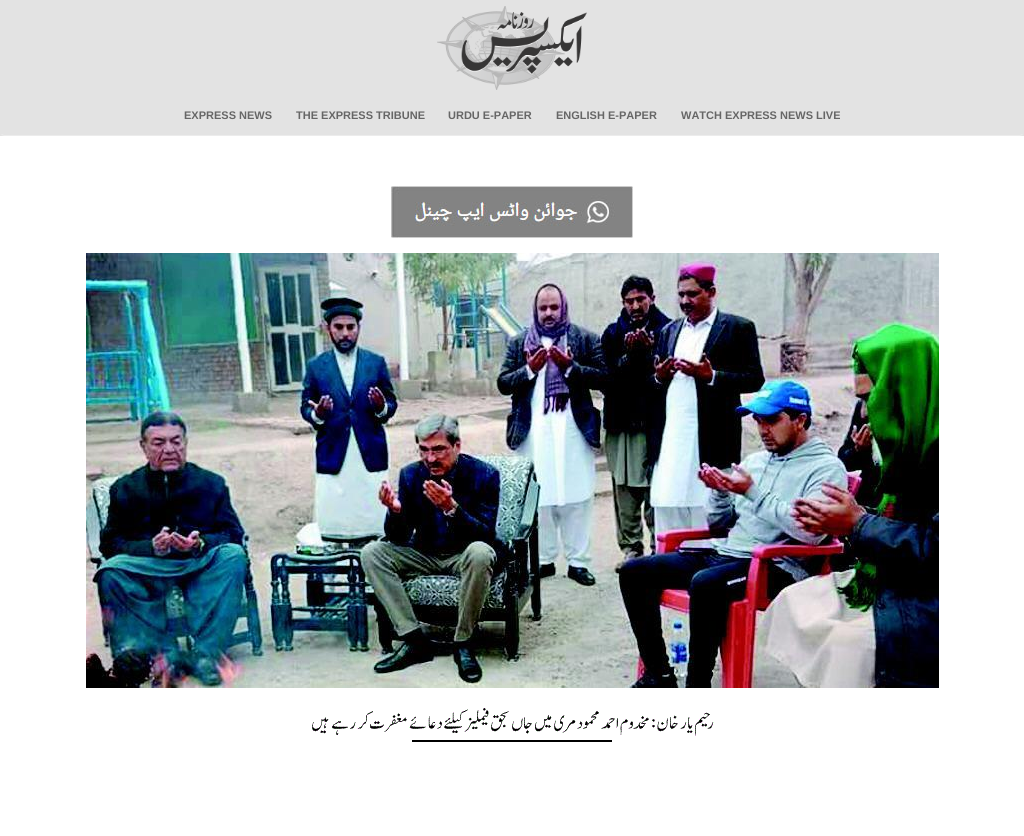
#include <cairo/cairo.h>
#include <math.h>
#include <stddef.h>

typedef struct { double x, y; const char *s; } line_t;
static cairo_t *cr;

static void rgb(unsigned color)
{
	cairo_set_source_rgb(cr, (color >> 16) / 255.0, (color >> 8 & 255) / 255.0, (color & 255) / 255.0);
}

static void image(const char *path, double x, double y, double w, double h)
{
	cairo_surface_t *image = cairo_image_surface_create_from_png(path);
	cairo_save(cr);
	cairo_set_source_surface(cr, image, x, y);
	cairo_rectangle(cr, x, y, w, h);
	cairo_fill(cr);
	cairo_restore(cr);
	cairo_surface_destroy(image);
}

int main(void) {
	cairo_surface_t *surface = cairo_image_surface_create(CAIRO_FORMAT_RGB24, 1024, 836);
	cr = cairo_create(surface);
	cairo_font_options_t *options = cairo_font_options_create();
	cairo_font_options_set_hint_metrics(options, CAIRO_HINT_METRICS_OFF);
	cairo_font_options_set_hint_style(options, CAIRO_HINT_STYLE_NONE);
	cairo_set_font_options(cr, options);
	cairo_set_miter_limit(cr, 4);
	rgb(0xffffff);
	cairo_paint(cr);
	rgb(0xe3e3e3);
	cairo_rectangle(cr, 0, 0, 1024, 136);
	cairo_fill(cr);
	cairo_new_path(cr);
	cairo_move_to(cr, 1022.5, 134.5);
	cairo_line_to(cr, 1020, 135.5);
	cairo_line_to(cr, 4, 135.5);
	cairo_line_to(cr, 1.5, 134.5);
	rgb(0xececec);
	cairo_set_line_width(cr, 1);
	cairo_stroke(cr);
	image("img/1.png", 437, 6, 150, 84);
	image("img/2.png", 391, 186, 242, 52);
	image("img/3.png", 86, 253, 853, 435);
	image("img/4.png", 312, 708, 402, 34);
	cairo_select_font_face(cr, "Liberation Sans", CAIRO_FONT_SLANT_NORMAL, CAIRO_FONT_WEIGHT_BOLD);
	cairo_set_font_size(cr, 11);
	rgb(0x666666);
	{
		static const line_t items[] = {
			{184, 119, "EXPRESS NEWS"},
			{296, 119, "THE EXPRESS TRIBUNE"},
			{448, 119, "URDU E-PAPER"},
			{556, 119, "ENGLISH E-PAPER"},
			{681, 119, "WATCH EXPRESS NEWS LIVE"},
		};
		for (size_t i = 0; i < sizeof items / sizeof *items; i++) {
			cairo_move_to(cr, items[i].x, items[i].y);
			cairo_show_text(cr, items[i].s);
		}
	}
	cairo_surface_write_to_png(surface, "page.png");
	cairo_font_options_destroy(options);
	cairo_destroy(cr);
	cairo_surface_destroy(surface);
	return 0;
}
